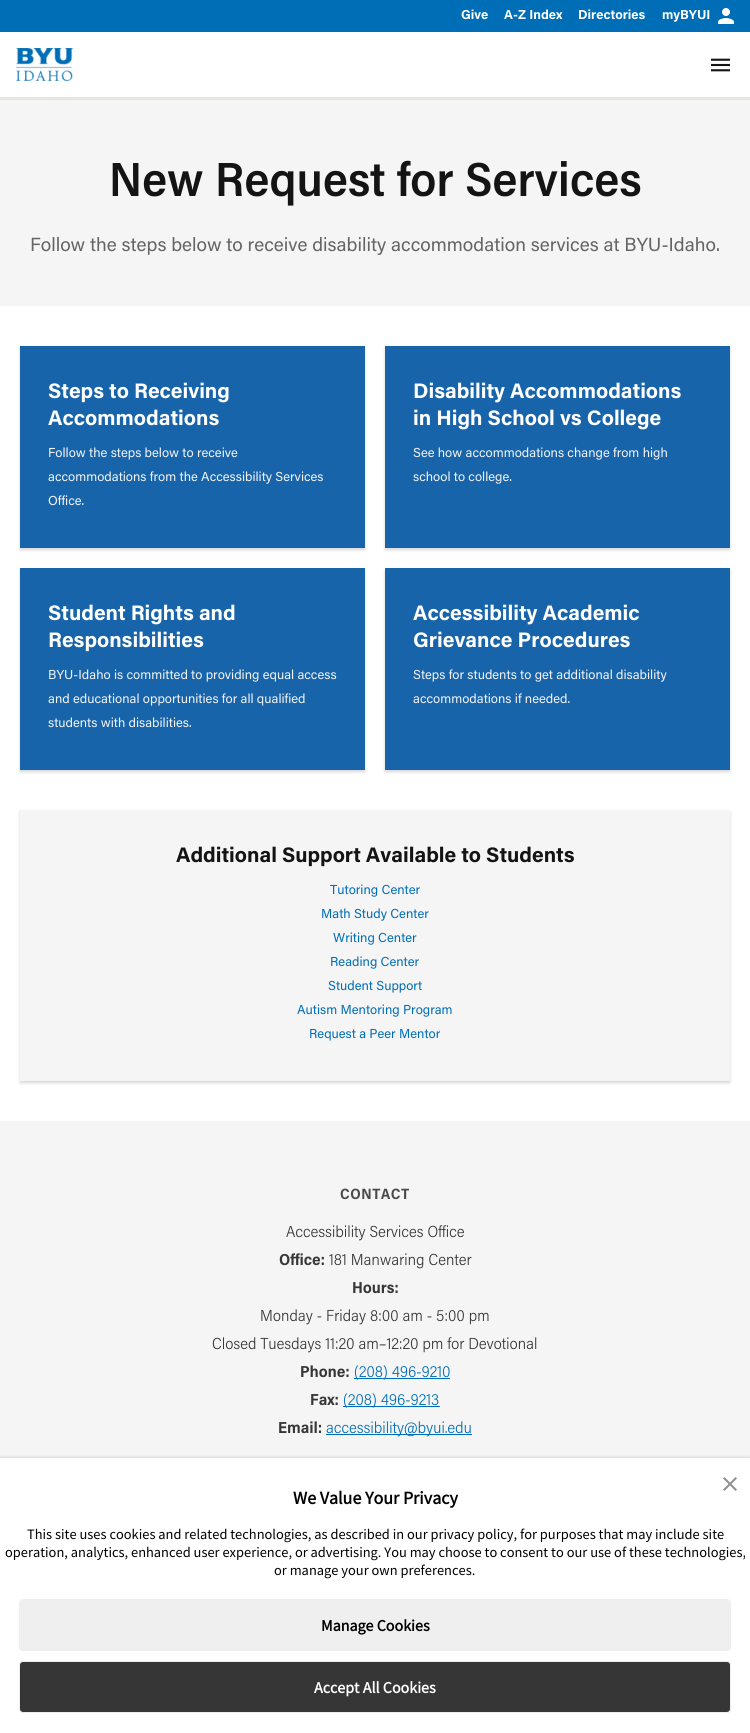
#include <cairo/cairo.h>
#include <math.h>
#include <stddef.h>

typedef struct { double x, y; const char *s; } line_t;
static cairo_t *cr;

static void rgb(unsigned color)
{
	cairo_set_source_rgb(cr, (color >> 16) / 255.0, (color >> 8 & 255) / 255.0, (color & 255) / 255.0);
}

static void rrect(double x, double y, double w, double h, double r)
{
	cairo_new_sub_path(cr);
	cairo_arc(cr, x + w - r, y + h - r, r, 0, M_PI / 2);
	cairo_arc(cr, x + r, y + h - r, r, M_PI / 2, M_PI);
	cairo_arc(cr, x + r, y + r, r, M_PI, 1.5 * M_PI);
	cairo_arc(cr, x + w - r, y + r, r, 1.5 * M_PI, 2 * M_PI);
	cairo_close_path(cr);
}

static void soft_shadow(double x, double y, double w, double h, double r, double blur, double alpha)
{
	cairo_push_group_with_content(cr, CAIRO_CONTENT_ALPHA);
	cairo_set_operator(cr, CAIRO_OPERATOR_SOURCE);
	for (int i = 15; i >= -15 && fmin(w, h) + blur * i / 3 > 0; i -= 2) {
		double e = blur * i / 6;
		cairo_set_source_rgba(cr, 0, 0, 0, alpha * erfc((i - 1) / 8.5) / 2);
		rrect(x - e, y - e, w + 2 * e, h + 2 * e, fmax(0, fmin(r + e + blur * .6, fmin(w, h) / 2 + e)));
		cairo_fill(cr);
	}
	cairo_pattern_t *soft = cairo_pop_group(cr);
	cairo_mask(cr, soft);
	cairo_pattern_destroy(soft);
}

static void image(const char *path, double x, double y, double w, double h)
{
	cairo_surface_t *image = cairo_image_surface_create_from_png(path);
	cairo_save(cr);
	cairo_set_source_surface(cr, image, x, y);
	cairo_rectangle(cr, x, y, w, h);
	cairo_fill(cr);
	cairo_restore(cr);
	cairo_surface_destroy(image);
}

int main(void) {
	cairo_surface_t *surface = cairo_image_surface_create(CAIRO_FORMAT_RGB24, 750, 1733);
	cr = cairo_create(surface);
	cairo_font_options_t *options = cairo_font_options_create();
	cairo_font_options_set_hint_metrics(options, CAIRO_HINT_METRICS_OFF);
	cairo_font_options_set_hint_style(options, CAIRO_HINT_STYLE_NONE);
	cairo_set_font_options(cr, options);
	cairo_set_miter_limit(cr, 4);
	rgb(0xffffff);
	cairo_paint(cr);
	rgb(0x006eb6);
	cairo_rectangle(cr, 0, 0, 750, 32);
	cairo_fill(cr);
	image("img/1.png", 718, 8, 16, 16);
	rgb(0xe6e5e0);
	cairo_rectangle(cr, 0, 97, 750, 3);
	cairo_fill(cr);
	image("img/2.png", 16, 48, 57, 33);
	image("img/3.png", 711, 58, 19, 14);
	rgb(0xf5f5f5);
	cairo_rectangle(cr, 0, 100, 750, 206);
	cairo_fill(cr);
	image("img/4.png", 112, 160, 529, 46);
	rgb(0x000000);
	soft_shadow(20, 348, 345, 202, 0, 1.5, 0.16);
	rgb(0x1764aa);
	cairo_rectangle(cr, 20, 346, 345, 202);
	cairo_fill(cr);
	rgb(0x000000);
	soft_shadow(385, 348, 345, 202, 0, 1.5, 0.16);
	rgb(0x1764aa);
	cairo_rectangle(cr, 385, 346, 345, 202);
	cairo_fill(cr);
	rgb(0x000000);
	soft_shadow(20, 570, 345, 202, 0, 1.5, 0.16);
	rgb(0x1764aa);
	cairo_rectangle(cr, 20, 568, 345, 202);
	cairo_fill(cr);
	rgb(0x000000);
	soft_shadow(385, 570, 345, 202, 0, 1.5, 0.16);
	rgb(0x1764aa);
	cairo_rectangle(cr, 385, 568, 345, 202);
	cairo_fill(cr);
	rgb(0x000000);
	soft_shadow(20, 812, 710, 271, 0, 1.5, 0.16);
	rgb(0xf5f5f5);
	cairo_rectangle(cr, 20, 810, 710, 271);
	cairo_fill(cr);
	cairo_rectangle(cr, 0, 1121, 750, 337);
	cairo_fill(cr);
	image("img/5.png", 340, 1188, 69, 12);
	image("img/6.png", 286, 1225, 178, 16);
	image("img/7.png", 279, 1253, 45, 13);
	image("img/8.png", 329, 1253, 143, 16);
	image("img/9.png", 353, 1282, 45, 12);
	image("img/10.png", 261, 1309, 228, 16);
	image("img/11.png", 212, 1337, 325, 16);
	image("img/12.png", 301, 1365, 48, 13);
	rgb(0x006eb6);
	cairo_rectangle(cr, 354, 1378, 96, 1);
	cairo_fill(cr);
	image("img/13.png", 354, 1365, 96, 15);
	image("img/14.png", 311, 1394, 27, 12);
	cairo_rectangle(cr, 343, 1406, 97, 1);
	cairo_fill(cr);
	image("img/15.png", 343, 1393, 96, 15);
	image("img/16.png", 279, 1421, 43, 13);
	cairo_rectangle(cr, 326, 1434, 146, 1);
	cairo_fill(cr);
	image("img/17.png", 326, 1421, 145, 16);
	rgb(0x000000);
	soft_shadow(0, 1458, 750, 275, 0, 2, 0.2);
	rgb(0xffffff);
	cairo_rectangle(cr, 0, 1458, 750, 275);
	cairo_fill(cr);
	image("img/18.png", 723, 1477, 14, 14);
	rgb(0xefefef);
	rrect(19.5, 1599.5, 711, 51, 3.5);
	cairo_fill_preserve(cr);
	rgb(0xeeeeee);
	cairo_set_line_width(cr, 1);
	cairo_stroke(cr);
	rgb(0x363636);
	rrect(19.5, 1661.5, 711, 51, 3.5);
	cairo_fill_preserve(cr);
	rgb(0xeeeeee);
	cairo_stroke(cr);
	cairo_select_font_face(cr, "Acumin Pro", CAIRO_FONT_SLANT_NORMAL, CAIRO_FONT_WEIGHT_BOLD);
	cairo_set_font_size(cr, 13);
	rgb(0xffffff);
	{
		static const line_t items[] = {
			{461, 19, "Give"},
			{504, 19, "A-Z Index"},
			{578, 19, "Directories"},
			{662, 19, "myBYUI"},
		};
		for (size_t i = 0; i < sizeof items / sizeof *items; i++) {
			cairo_move_to(cr, items[i].x, items[i].y);
			cairo_show_text(cr, items[i].s);
		}
	}
	cairo_select_font_face(cr, "Acumin Pro", CAIRO_FONT_SLANT_NORMAL, CAIRO_FONT_WEIGHT_NORMAL);
	cairo_set_font_size(cr, 19);
	rgb(0x656565);
	cairo_move_to(cr, 30, 251);
	cairo_show_text(cr, "Follow the steps below to receive disability accommodation services at BYU-Idaho.");
	cairo_select_font_face(cr, "Acumin Pro", CAIRO_FONT_SLANT_NORMAL, CAIRO_FONT_WEIGHT_BOLD);
	cairo_set_font_size(cr, 21);
	rgb(0xffffff);
	cairo_move_to(cr, 48, 398);
	cairo_show_text(cr, "Steps to Receiving");
	cairo_move_to(cr, 48, 425);
	cairo_show_text(cr, "Accommodations");
	cairo_select_font_face(cr, "Acumin Pro", CAIRO_FONT_SLANT_NORMAL, CAIRO_FONT_WEIGHT_NORMAL);
	cairo_set_font_size(cr, 13);
	rgb(0xf3f3f3);
	{
		static const line_t items[] = {
			{48, 457, "Follow the steps below to receive"},
			{48, 481, "accommodations from the Accessibility Services"},
			{48, 505, "Office."},
		};
		for (size_t i = 0; i < sizeof items / sizeof *items; i++) {
			cairo_move_to(cr, items[i].x, items[i].y);
			cairo_show_text(cr, items[i].s);
		}
	}
	cairo_select_font_face(cr, "Acumin Pro", CAIRO_FONT_SLANT_NORMAL, CAIRO_FONT_WEIGHT_BOLD);
	cairo_set_font_size(cr, 21);
	rgb(0xffffff);
	cairo_move_to(cr, 413, 398);
	cairo_show_text(cr, "Disability Accommodations");
	cairo_move_to(cr, 413, 425);
	cairo_show_text(cr, "in High School vs College");
	cairo_select_font_face(cr, "Acumin Pro", CAIRO_FONT_SLANT_NORMAL, CAIRO_FONT_WEIGHT_NORMAL);
	cairo_set_font_size(cr, 13);
	rgb(0xf3f3f3);
	cairo_move_to(cr, 413, 457);
	cairo_show_text(cr, "See how accommodations change from high");
	cairo_move_to(cr, 413, 481);
	cairo_show_text(cr, "school to college.");
	cairo_select_font_face(cr, "Acumin Pro", CAIRO_FONT_SLANT_NORMAL, CAIRO_FONT_WEIGHT_BOLD);
	cairo_set_font_size(cr, 21);
	rgb(0xffffff);
	cairo_move_to(cr, 48, 620);
	cairo_show_text(cr, "Student Rights and");
	cairo_move_to(cr, 48, 647);
	cairo_show_text(cr, "Responsibilities");
	cairo_select_font_face(cr, "Acumin Pro", CAIRO_FONT_SLANT_NORMAL, CAIRO_FONT_WEIGHT_NORMAL);
	cairo_set_font_size(cr, 13);
	rgb(0xf3f3f3);
	{
		static const line_t items[] = {
			{48, 679, "BYU-Idaho is committed to providing equal access"},
			{48, 703, "and educational opportunities for all qualified"},
			{48, 727, "students with disabilities."},
		};
		for (size_t i = 0; i < sizeof items / sizeof *items; i++) {
			cairo_move_to(cr, items[i].x, items[i].y);
			cairo_show_text(cr, items[i].s);
		}
	}
	cairo_select_font_face(cr, "Acumin Pro", CAIRO_FONT_SLANT_NORMAL, CAIRO_FONT_WEIGHT_BOLD);
	cairo_set_font_size(cr, 21);
	rgb(0xffffff);
	cairo_move_to(cr, 413, 620);
	cairo_show_text(cr, "Accessibility Academic");
	cairo_move_to(cr, 413, 647);
	cairo_show_text(cr, "Grievance Procedures");
	cairo_select_font_face(cr, "Acumin Pro", CAIRO_FONT_SLANT_NORMAL, CAIRO_FONT_WEIGHT_NORMAL);
	cairo_set_font_size(cr, 13);
	rgb(0xf3f3f3);
	cairo_move_to(cr, 413, 679);
	cairo_show_text(cr, "Steps for students to get additional disability");
	cairo_move_to(cr, 413, 703);
	cairo_show_text(cr, "accommodations if needed.");
	cairo_select_font_face(cr, "Acumin Pro", CAIRO_FONT_SLANT_NORMAL, CAIRO_FONT_WEIGHT_BOLD);
	cairo_set_font_size(cr, 21);
	rgb(0x141414);
	cairo_move_to(cr, 176, 862);
	cairo_show_text(cr, "Additional Support Available to Students");
	cairo_select_font_face(cr, "Acumin Pro", CAIRO_FONT_SLANT_NORMAL, CAIRO_FONT_WEIGHT_NORMAL);
	cairo_set_font_size(cr, 13);
	rgb(0x006eb6);
	{
		static const line_t items[] = {
			{330, 894, "Tutoring Center"},
			{321, 918, "Math Study Center"},
			{333, 942, "Writing Center"},
			{330, 966, "Reading Center"},
			{328, 990, "Student Support"},
			{297, 1014, "Autism Mentoring Program"},
			{309, 1038, "Request a Peer Mentor"},
		};
		for (size_t i = 0; i < sizeof items / sizeof *items; i++) {
			cairo_move_to(cr, items[i].x, items[i].y);
			cairo_show_text(cr, items[i].s);
		}
	}
	cairo_select_font_face(cr, "Source Sans Pro", CAIRO_FONT_SLANT_NORMAL, CAIRO_FONT_WEIGHT_BOLD);
	cairo_set_font_size(cr, 18);
	rgb(0x000000);
	cairo_move_to(cr, 293, 1504);
	cairo_show_text(cr, "We Value Your Privacy");
	cairo_select_font_face(cr, "Source Sans Pro", CAIRO_FONT_SLANT_NORMAL, CAIRO_FONT_WEIGHT_NORMAL);
	cairo_set_font_size(cr, 14.4);
	{
		static const line_t items[] = {
			{27, 1539, "This site uses cookies and related technologies, as described in our privacy policy, for purposes that may include site"},
			{5, 1557, "operation, analytics, enhanced user experience, or advertising. You may choose to consent to our use of these technologies,"},
			{274, 1575, "or manage your own preferences."},
		};
		for (size_t i = 0; i < sizeof items / sizeof *items; i++) {
			cairo_move_to(cr, items[i].x, items[i].y);
			cairo_show_text(cr, items[i].s);
		}
	}
	cairo_select_font_face(cr, "Source Sans Pro", CAIRO_FONT_SLANT_NORMAL, CAIRO_FONT_WEIGHT_BOLD);
	cairo_set_font_size(cr, 16);
	cairo_move_to(cr, 321, 1631);
	cairo_show_text(cr, "Manage Cookies");
	rgb(0xffffff);
	cairo_move_to(cr, 314, 1693);
	cairo_show_text(cr, "Accept All Cookies");
	cairo_surface_write_to_png(surface, "page.png");
	cairo_font_options_destroy(options);
	cairo_destroy(cr);
	cairo_surface_destroy(surface);
	return 0;
}
